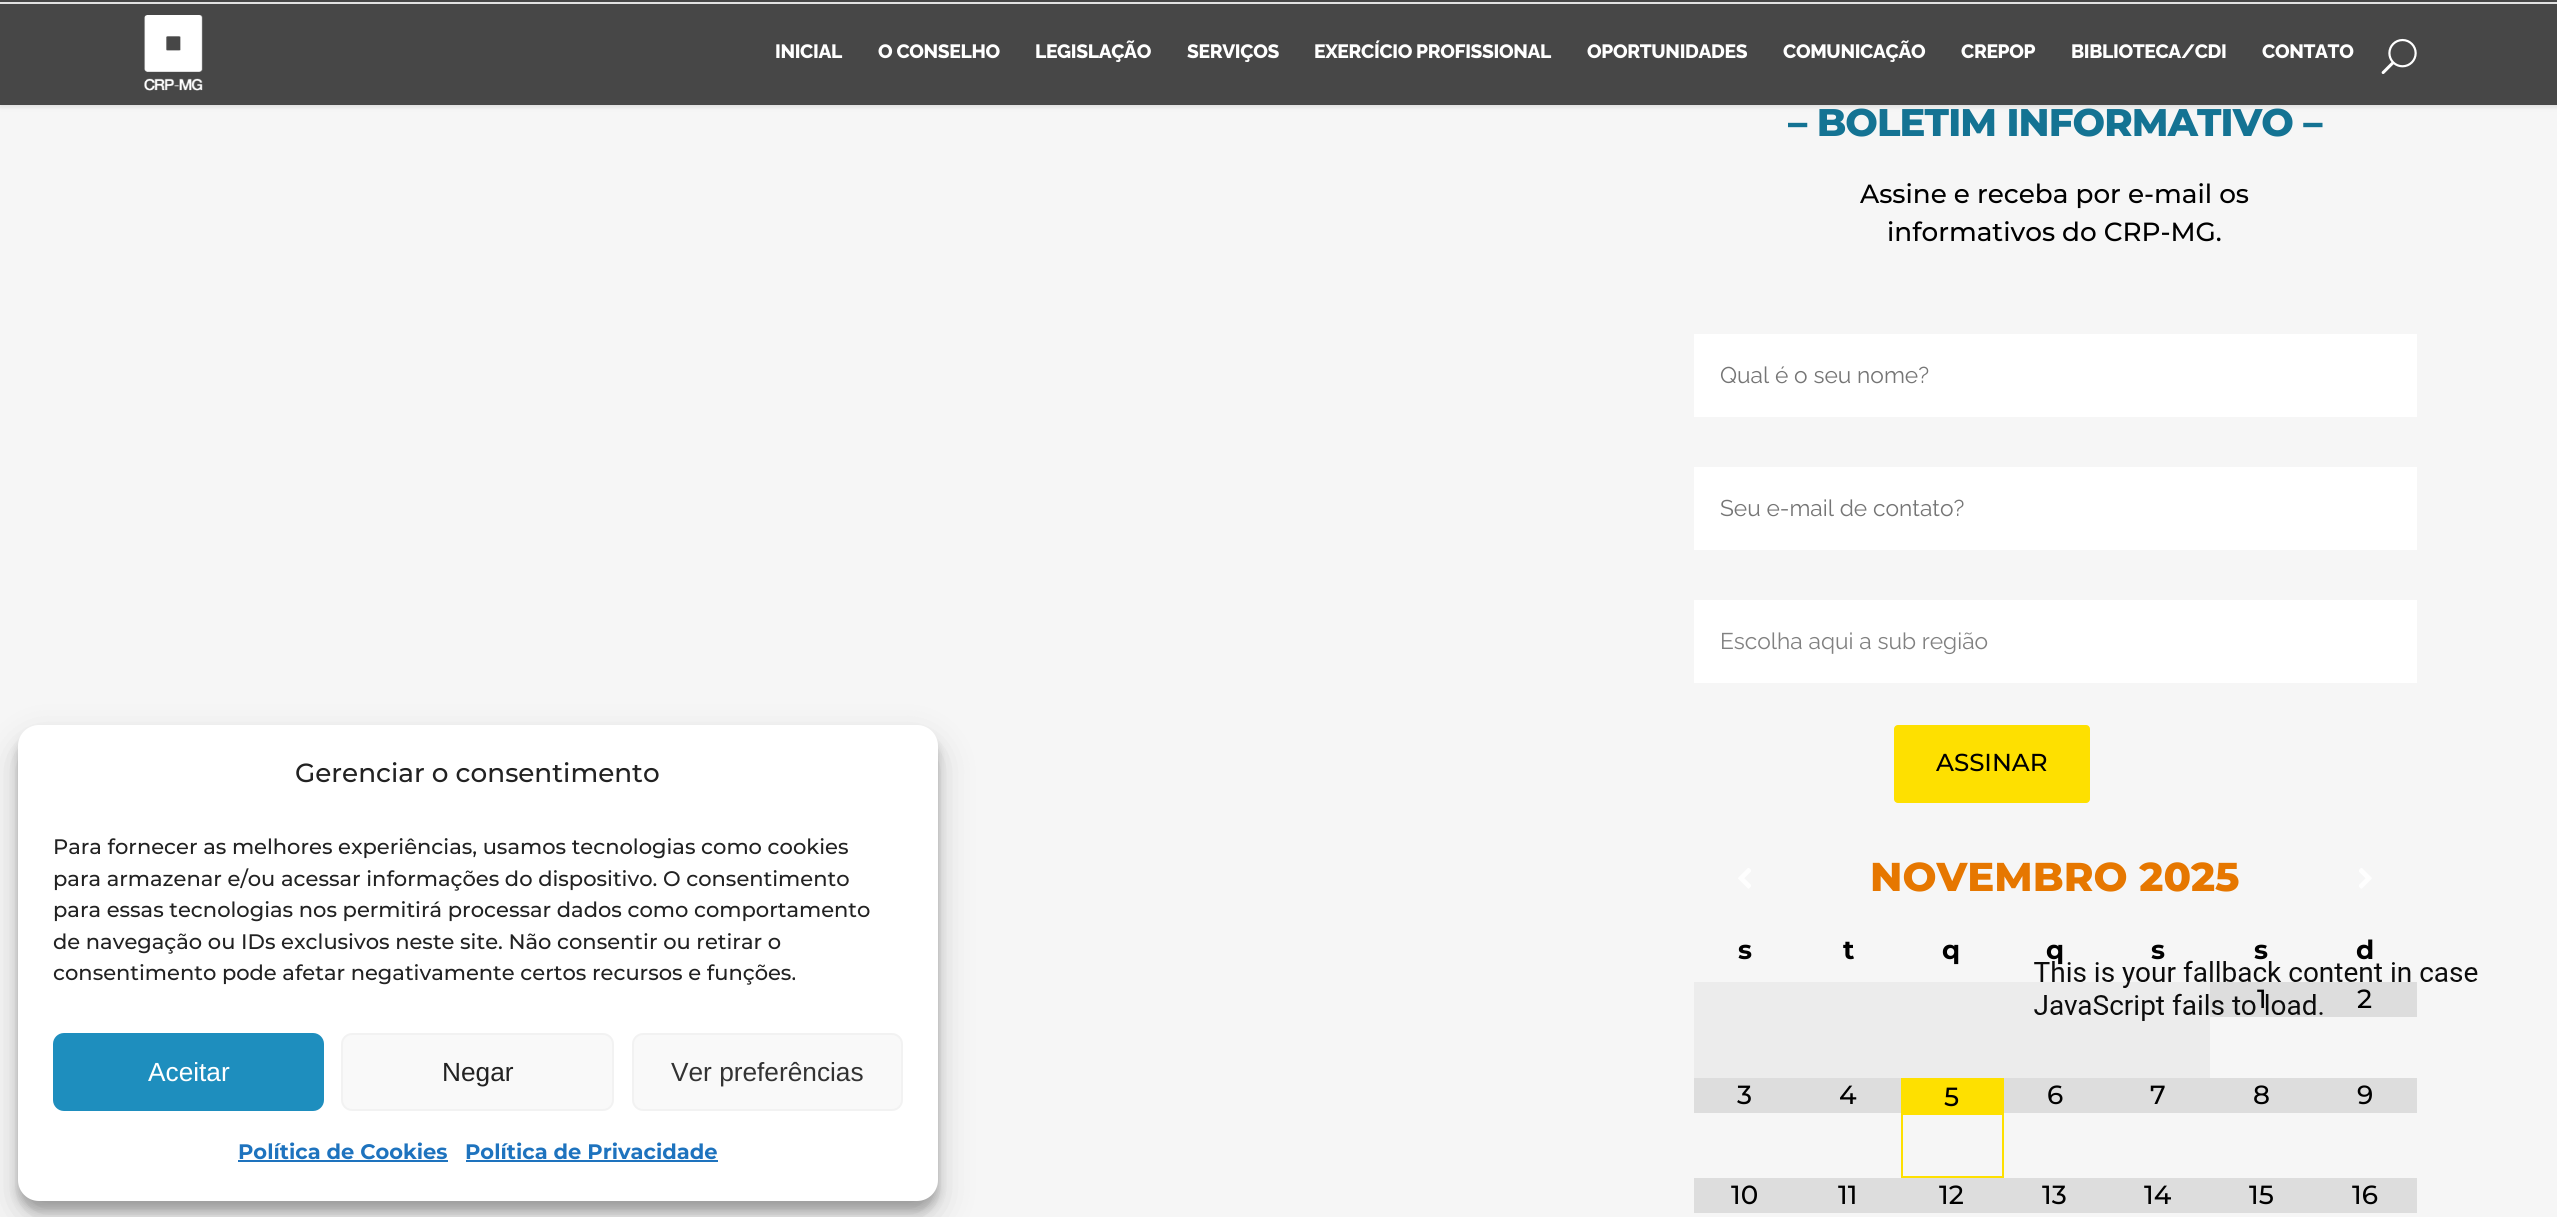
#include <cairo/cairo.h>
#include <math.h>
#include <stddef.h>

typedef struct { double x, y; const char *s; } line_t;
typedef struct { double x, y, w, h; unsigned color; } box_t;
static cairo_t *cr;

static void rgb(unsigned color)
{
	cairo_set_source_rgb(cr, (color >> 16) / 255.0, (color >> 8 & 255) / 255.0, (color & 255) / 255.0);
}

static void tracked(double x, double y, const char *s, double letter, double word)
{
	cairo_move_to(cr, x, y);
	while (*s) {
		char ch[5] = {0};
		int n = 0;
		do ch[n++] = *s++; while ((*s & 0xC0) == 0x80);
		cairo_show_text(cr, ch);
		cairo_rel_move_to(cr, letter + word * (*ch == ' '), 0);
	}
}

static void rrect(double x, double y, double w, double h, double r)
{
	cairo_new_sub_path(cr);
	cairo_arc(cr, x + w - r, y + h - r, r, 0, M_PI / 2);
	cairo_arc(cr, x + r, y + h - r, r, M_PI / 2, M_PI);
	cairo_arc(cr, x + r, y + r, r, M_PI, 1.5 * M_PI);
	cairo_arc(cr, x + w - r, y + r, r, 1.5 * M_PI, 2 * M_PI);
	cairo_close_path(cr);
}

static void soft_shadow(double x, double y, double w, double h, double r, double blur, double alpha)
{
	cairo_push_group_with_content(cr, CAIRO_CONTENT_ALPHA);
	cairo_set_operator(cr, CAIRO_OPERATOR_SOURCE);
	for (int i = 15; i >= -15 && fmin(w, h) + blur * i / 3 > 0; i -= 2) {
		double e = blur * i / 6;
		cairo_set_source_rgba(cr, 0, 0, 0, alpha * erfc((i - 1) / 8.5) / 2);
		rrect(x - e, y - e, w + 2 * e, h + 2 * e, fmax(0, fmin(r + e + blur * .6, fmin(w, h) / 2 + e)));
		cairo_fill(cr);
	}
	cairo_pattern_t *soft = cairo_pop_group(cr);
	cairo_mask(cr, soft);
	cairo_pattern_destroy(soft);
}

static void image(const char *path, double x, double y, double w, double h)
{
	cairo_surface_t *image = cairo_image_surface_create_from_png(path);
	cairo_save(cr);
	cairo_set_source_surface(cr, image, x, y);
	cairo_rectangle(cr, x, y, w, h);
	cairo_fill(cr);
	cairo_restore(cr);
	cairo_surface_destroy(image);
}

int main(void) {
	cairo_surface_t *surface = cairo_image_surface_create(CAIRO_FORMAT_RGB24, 2557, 1217);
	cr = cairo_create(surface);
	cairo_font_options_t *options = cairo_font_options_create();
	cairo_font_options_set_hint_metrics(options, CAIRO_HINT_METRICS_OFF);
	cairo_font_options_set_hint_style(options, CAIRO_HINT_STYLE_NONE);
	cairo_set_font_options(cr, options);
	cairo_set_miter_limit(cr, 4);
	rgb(0xf6f6f6);
	cairo_paint(cr);
	rgb(0x000000);
	soft_shadow(18, 735, 920, 476, 21, 5, 0.23);
	soft_shadow(18, 742, 920, 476, 21, 17.5, 0.19);
	rgb(0xffffff);
	rrect(18, 725, 920, 476, 21);
	cairo_fill(cr);
	rgb(0x1e8ebe);
	rrect(54, 1034, 269, 76, 10);
	cairo_fill_preserve(cr);
	cairo_stroke(cr);
	rgb(0xf9f9f9);
	rrect(342, 1034, 271, 76, 10);
	cairo_fill_preserve(cr);
	rgb(0xf2f2f2);
	cairo_stroke(cr);
	rgb(0xf9f9f9);
	rrect(633, 1034, 269, 76, 10);
	cairo_fill_preserve(cr);
	rgb(0xf2f2f2);
	cairo_stroke(cr);
	rgb(0x1e73be);
	cairo_rectangle(cr, 238, 1160, 210, 2);
	cairo_fill(cr);
	cairo_rectangle(cr, 466, 1160, 252, 2);
	cairo_fill(cr);
	rgb(0x000000);
	soft_shadow(0, 2, 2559, 105, 0, 2.5, 0.11);
	rgb(0x474747);
	cairo_rectangle(cr, 0, 0, 2557, 105);
	cairo_fill(cr);
	rgb(0xe2e2e2);
	cairo_rectangle(cr, 0, 2, 2557, 2);
	cairo_fill(cr);
	image("img/1.png", 144, 15, 59, 76);
	image("img/2.png", 2381, 38, 36, 36);
	{
		static const box_t items[] = {
			{1694, 334, 723, 83, 0xffffff},
			{1694, 467, 723, 83, 0xffffff},
			{1694, 600, 723, 83, 0xffffff},
		};
		for (size_t i = 0; i < sizeof items / sizeof *items; i++) {
			rgb(items[i].color);
			cairo_rectangle(cr, items[i].x, items[i].y, items[i].w, items[i].h);
			cairo_fill(cr);
		}
	}
	rgb(0xfee000);
	rrect(1894, 725, 196, 78, 4);
	cairo_fill(cr);
	image("img/3.png", 1738, 868, 13, 21);
	image("img/4.png", 2359, 868, 13, 21);
	{
		static const box_t items[] = {
			{1694, 982, 516, 96, 0xececec},
			{2210, 982, 207, 35, 0xdddddd},
			{1694, 1078, 207, 35, 0xdddddd},
		};
		for (size_t i = 0; i < sizeof items / sizeof *items; i++) {
			rgb(items[i].color);
			cairo_rectangle(cr, items[i].x, items[i].y, items[i].w, items[i].h);
			cairo_fill(cr);
		}
	}
	cairo_rectangle(cr, 1902, 1079, 101, 98);
	rgb(0xfee000);
	cairo_stroke(cr);
	{
		static const box_t items[] = {
			{1903, 1080, 99, 35, 0xfee000},
			{2004, 1078, 413, 35, 0xdddddd},
			{1694, 1178, 723, 35, 0xdddddd},
		};
		for (size_t i = 0; i < sizeof items / sizeof *items; i++) {
			rgb(items[i].color);
			cairo_rectangle(cr, items[i].x, items[i].y, items[i].w, items[i].h);
			cairo_fill(cr);
		}
	}
	cairo_select_font_face(cr, "Montserrat Medium", CAIRO_FONT_SLANT_NORMAL, CAIRO_FONT_WEIGHT_NORMAL);
	cairo_set_font_size(cr, 26.25);
	rgb(0x222222);
	cairo_move_to(cr, 295, 782);
	cairo_show_text(cr, "Gerenciar o consentimento");
	cairo_set_font_size(cr, 21);
	{
		static const line_t items[] = {
			{53, 854, "Para fornecer as melhores experiências, usamos tecnologias como cookies"},
			{53, 886, "para armazenar e/ou acessar informações do dispositivo. O consentimento"},
			{53, 917, "para essas tecnologias nos permitirá processar dados como comportamento"},
			{53, 949, "de navegação ou IDs exclusivos neste site. Não consentir ou retirar o"},
			{53, 980, "consentimento pode afetar negativamente certos recursos e funções."},
		};
		for (size_t i = 0; i < sizeof items / sizeof *items; i++) {
			cairo_move_to(cr, items[i].x, items[i].y);
			cairo_show_text(cr, items[i].s);
		}
	}
	cairo_select_font_face(cr, "Liberation Sans", CAIRO_FONT_SLANT_NORMAL, CAIRO_FONT_WEIGHT_NORMAL);
	cairo_set_font_size(cr, 26.25);
	rgb(0xffffff);
	cairo_move_to(cr, 148, 1081);
	cairo_show_text(cr, "Aceitar");
	rgb(0x222222);
	cairo_move_to(cr, 442, 1081);
	cairo_show_text(cr, "Negar");
	rgb(0x333333);
	cairo_move_to(cr, 671, 1081);
	cairo_show_text(cr, "Ver preferências");
	cairo_select_font_face(cr, "Montserrat", CAIRO_FONT_SLANT_NORMAL, CAIRO_FONT_WEIGHT_BOLD);
	cairo_set_font_size(cr, 21);
	rgb(0x1e73be);
	cairo_move_to(cr, 238, 1159);
	cairo_show_text(cr, "Política de Cookies");
	cairo_move_to(cr, 465, 1159);
	cairo_show_text(cr, "Política de Privacidade");
	cairo_select_font_face(cr, "Raleway ExtraBold", CAIRO_FONT_SLANT_NORMAL, CAIRO_FONT_WEIGHT_NORMAL);
	cairo_set_font_size(cr, 19.25);
	rgb(0xffffff);
	{
		static const line_t items[] = {
			{775, 58, "INICIAL"},
			{878, 58, "O CONSELHO"},
			{1035, 58, "LEGISLAÇÃO"},
			{1187, 58, "SERVIÇOS"},
			{1314, 58, "EXERCÍCIO PROFISSIONAL"},
			{1587, 58, "OPORTUNIDADES"},
			{1783, 58, "COMUNICAÇÃO"},
			{1961, 58, "CREPOP"},
			{2071, 58, "BIBLIOTECA/CDI"},
			{2262, 58, "CONTATO"},
		};
		for (size_t i = 0; i < sizeof items / sizeof *items; i++) {
			tracked(items[i].x, items[i].y, items[i].s, -0.35, 0);
		}
	}
	cairo_select_font_face(cr, "Montserrat ExtraBold", CAIRO_FONT_SLANT_NORMAL, CAIRO_FONT_WEIGHT_NORMAL);
	cairo_set_font_size(cr, 38.5);
	rgb(0x147393);
	tracked(1788, 136, "– BOLETIM INFORMATIVO –", -0.9, 0);
	cairo_select_font_face(cr, "Montserrat Medium", CAIRO_FONT_SLANT_NORMAL, CAIRO_FONT_WEIGHT_NORMAL);
	cairo_set_font_size(cr, 26.25);
	rgb(0x000000);
	cairo_move_to(cr, 1860, 203);
	cairo_show_text(cr, "Assine e receba por e-mail os");
	cairo_move_to(cr, 1887, 241);
	cairo_show_text(cr, "informativos do CRP-MG.");
	cairo_select_font_face(cr, "Raleway", CAIRO_FONT_SLANT_NORMAL, CAIRO_FONT_WEIGHT_NORMAL);
	cairo_set_font_size(cr, 22.75);
	rgb(0x757575);
	cairo_move_to(cr, 1720, 383);
	cairo_show_text(cr, "Qual é o seu nome?");
	cairo_move_to(cr, 1720, 516);
	cairo_show_text(cr, "Seu e-mail de contato?");
	rgb(0x818181);
	cairo_move_to(cr, 1720, 649);
	cairo_show_text(cr, "Escolha aqui a sub região");
	cairo_select_font_face(cr, "Montserrat Medium", CAIRO_FONT_SLANT_NORMAL, CAIRO_FONT_WEIGHT_NORMAL);
	cairo_set_font_size(cr, 24.5);
	rgb(0x000000);
	cairo_move_to(cr, 1936, 771);
	cairo_show_text(cr, "ASSINAR");
	cairo_select_font_face(cr, "Montserrat ExtraBold", CAIRO_FONT_SLANT_NORMAL, CAIRO_FONT_WEIGHT_NORMAL);
	cairo_set_font_size(cr, 40.25);
	rgb(0xe67700);
	cairo_move_to(cr, 1870, 891);
	cairo_show_text(cr, "NOVEMBRO 2025");
	cairo_select_font_face(cr, "Montserrat", CAIRO_FONT_SLANT_NORMAL, CAIRO_FONT_WEIGHT_BOLD);
	cairo_set_font_size(cr, 26.25);
	rgb(0x000000);
	{
		static const line_t items[] = {
			{1738, 959, "s"},
			{1843, 959, "t"},
			{1942, 959, "q"},
			{2046, 959, "q"},
			{2151, 959, "s"},
			{2254, 959, "s"},
			{2356, 959, "d"},
		};
		for (size_t i = 0; i < sizeof items / sizeof *items; i++) {
			cairo_move_to(cr, items[i].x, items[i].y);
			cairo_show_text(cr, items[i].s);
		}
	}
	cairo_select_font_face(cr, "Montserrat Medium", CAIRO_FONT_SLANT_NORMAL, CAIRO_FONT_WEIGHT_NORMAL);
	{
		static const line_t items[] = {
			{2257, 1008, "1"},
			{2357, 1008, "2"},
			{1737, 1104, "3"},
			{1839, 1104, "4"},
			{1944, 1106, "5"},
			{2047, 1104, "6"},
			{2150, 1104, "7"},
			{2253, 1104, "8"},
			{2357, 1104, "9"},
			{1731, 1204, "10"},
			{1838, 1204, "11"},
			{1939, 1204, "12"},
			{2042, 1204, "13"},
			{2144, 1204, "14"},
			{2249, 1204, "15"},
			{2352, 1204, "16"},
		};
		for (size_t i = 0; i < sizeof items / sizeof *items; i++) {
			cairo_move_to(cr, items[i].x, items[i].y);
			cairo_show_text(cr, items[i].s);
		}
	}
	image("img/5.png", 2034, 960, 444, 61);
	cairo_surface_write_to_png(surface, "page.png");
	cairo_font_options_destroy(options);
	cairo_destroy(cr);
	cairo_surface_destroy(surface);
	return 0;
}
